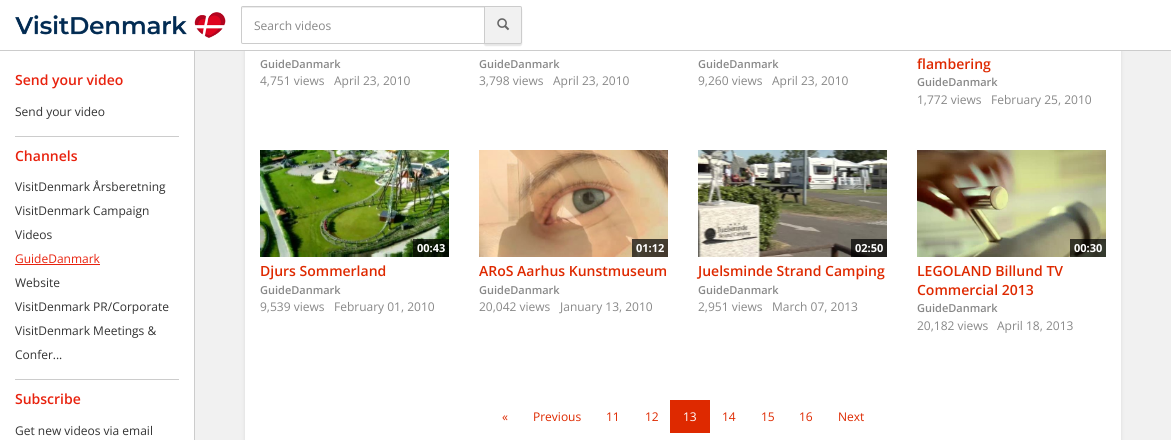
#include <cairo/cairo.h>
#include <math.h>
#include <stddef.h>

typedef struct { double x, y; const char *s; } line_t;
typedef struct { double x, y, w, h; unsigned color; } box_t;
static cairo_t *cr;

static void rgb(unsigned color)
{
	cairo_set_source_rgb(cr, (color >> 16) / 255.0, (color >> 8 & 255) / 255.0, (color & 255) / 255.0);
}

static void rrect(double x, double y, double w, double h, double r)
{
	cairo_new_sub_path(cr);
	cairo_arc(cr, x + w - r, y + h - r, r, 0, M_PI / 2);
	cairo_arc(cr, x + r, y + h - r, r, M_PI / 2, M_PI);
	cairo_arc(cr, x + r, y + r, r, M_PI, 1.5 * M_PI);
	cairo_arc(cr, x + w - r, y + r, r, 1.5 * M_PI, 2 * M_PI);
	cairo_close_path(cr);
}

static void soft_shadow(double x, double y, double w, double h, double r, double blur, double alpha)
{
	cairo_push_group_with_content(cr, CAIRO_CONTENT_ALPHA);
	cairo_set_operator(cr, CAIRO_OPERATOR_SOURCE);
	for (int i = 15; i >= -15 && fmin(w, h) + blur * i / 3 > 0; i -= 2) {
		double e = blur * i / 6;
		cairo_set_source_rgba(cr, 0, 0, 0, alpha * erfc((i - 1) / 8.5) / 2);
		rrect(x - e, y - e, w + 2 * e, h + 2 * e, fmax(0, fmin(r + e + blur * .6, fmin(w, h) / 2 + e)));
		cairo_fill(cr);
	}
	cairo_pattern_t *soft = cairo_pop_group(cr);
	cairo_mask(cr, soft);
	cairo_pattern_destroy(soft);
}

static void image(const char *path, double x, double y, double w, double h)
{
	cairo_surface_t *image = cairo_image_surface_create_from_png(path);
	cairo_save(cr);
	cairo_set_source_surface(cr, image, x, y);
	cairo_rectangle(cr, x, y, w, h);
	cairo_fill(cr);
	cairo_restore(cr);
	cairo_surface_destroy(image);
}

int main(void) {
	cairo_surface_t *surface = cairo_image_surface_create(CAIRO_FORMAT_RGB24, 1171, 440);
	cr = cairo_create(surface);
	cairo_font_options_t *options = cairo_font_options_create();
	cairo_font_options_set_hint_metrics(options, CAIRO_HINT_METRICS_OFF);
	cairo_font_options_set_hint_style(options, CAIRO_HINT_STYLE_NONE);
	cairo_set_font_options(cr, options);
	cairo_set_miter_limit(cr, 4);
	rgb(0xf1f1f1);
	cairo_paint(cr);
	rgb(0x000000);
	soft_shadow(245, -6, 876, 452, 0, 2, 0.1);
	rgb(0xffffff);
	cairo_rectangle(cr, 0, 0, 1171, 50);
	cairo_fill(cr);
	rgb(0xcccccc);
	cairo_rectangle(cr, 0, 50, 1171, 1);
	cairo_fill(cr);
	image("img/1.png", 15, 12, 211, 26);
	rgb(0x000000);
	soft_shadow(484, 8, 38, 38, 2, 0.5, 0.1);
	rgb(0xf1f1f1);
	cairo_new_path(cr);
	cairo_move_to(cr, 484.5, 6.5);
	cairo_line_to(cr, 520, 6.5);
	cairo_curve_to(cr, 521, 6.5, 521.5, 7, 521.5, 8);
	cairo_line_to(cr, 521.5, 42);
	cairo_curve_to(cr, 521.5, 43, 521, 43.5, 520, 43.5);
	cairo_line_to(cr, 484.5, 43.5);
	cairo_close_path(cr);
	cairo_fill_preserve(cr);
	rgb(0xcccccc);
	cairo_set_line_width(cr, 1);
	cairo_stroke(cr);
	rgb(0xffffff);
	cairo_new_path(cr);
	cairo_move_to(cr, 243, 6);
	cairo_line_to(cr, 485, 6);
	cairo_line_to(cr, 485, 44);
	cairo_line_to(cr, 243, 44);
	cairo_curve_to(cr, 242, 44, 241, 43, 241, 42);
	cairo_line_to(cr, 241, 8);
	cairo_curve_to(cr, 241, 7, 242, 6, 243, 6);
	cairo_close_path(cr);
	cairo_fill(cr);
	rgb(0xececec);
	cairo_new_path(cr);
	cairo_move_to(cr, 243, 8);
	cairo_line_to(cr, 484, 8);
	cairo_line_to(cr, 484, 7);
	cairo_line_to(cr, 243, 7);
	cairo_curve_to(cr, 242, 7, 242, 8, 242, 9);
	cairo_close_path(cr);
	cairo_fill(cr);
	cairo_new_path(cr);
	cairo_move_to(cr, 243, 6.5);
	cairo_line_to(cr, 484.5, 6.5);
	cairo_line_to(cr, 484.5, 43.5);
	cairo_line_to(cr, 243, 43.5);
	cairo_curve_to(cr, 242, 43.5, 241.5, 43, 241.5, 42);
	cairo_line_to(cr, 241.5, 8);
	cairo_curve_to(cr, 241.5, 7, 242, 6.5, 243, 6.5);
	cairo_close_path(cr);
	rgb(0xcccccc);
	cairo_stroke(cr);
	image("img/2.png", 497, 18, 13, 13);
	{
		static const box_t items[] = {
			{0, 51, 194, 389, 0xffffff},
			{194, 51, 1, 389, 0xcccccc},
			{15, 136, 164, 1, 0xcccccc},
			{15, 379, 164, 1, 0xcccccc},
			{15, 264, 85, 1, 0xe8220e},
			{245, 51, 876, 389, 0xffffff},
		};
		for (size_t i = 0; i < sizeof items / sizeof *items; i++) {
			rgb(items[i].color);
			cairo_rectangle(cr, items[i].x, items[i].y, items[i].w, items[i].h);
			cairo_fill(cr);
		}
	}
	image("img/3.png", 260, 150, 189, 107);
	cairo_set_source_rgba(cr, 0, 0, 0, 0.7);
	cairo_rectangle(cr, 413, 239, 36, 18);
	cairo_fill(cr);
	image("img/4.png", 479, 150, 189, 107);
	cairo_rectangle(cr, 632, 239, 36, 18);
	cairo_fill(cr);
	image("img/5.png", 698, 150, 189, 107);
	cairo_rectangle(cr, 851, 239, 36, 18);
	cairo_fill(cr);
	image("img/6.png", 917, 150, 189, 107);
	cairo_rectangle(cr, 1070, 239, 36, 18);
	cairo_fill(cr);
	rgb(0xde2900);
	cairo_rectangle(cr, 670, 400, 40, 33);
	cairo_fill(cr);
	cairo_select_font_face(cr, "Open Sans", CAIRO_FONT_SLANT_NORMAL, CAIRO_FONT_WEIGHT_NORMAL);
	cairo_set_font_size(cr, 12);
	rgb(0x888888);
	cairo_move_to(cr, 254, 30);
	cairo_show_text(cr, "Search videos");
	cairo_select_font_face(cr, "Open Sans SemiBold", CAIRO_FONT_SLANT_NORMAL, CAIRO_FONT_WEIGHT_NORMAL);
	cairo_set_font_size(cr, 14);
	rgb(0xe8220e);
	cairo_move_to(cr, 15, 85);
	cairo_show_text(cr, "Send your video");
	cairo_select_font_face(cr, "Open Sans", CAIRO_FONT_SLANT_NORMAL, CAIRO_FONT_WEIGHT_NORMAL);
	cairo_set_font_size(cr, 12);
	rgb(0x333333);
	cairo_move_to(cr, 15, 116);
	cairo_show_text(cr, "Send your video");
	cairo_select_font_face(cr, "Open Sans SemiBold", CAIRO_FONT_SLANT_NORMAL, CAIRO_FONT_WEIGHT_NORMAL);
	cairo_set_font_size(cr, 14);
	rgb(0xe8220e);
	cairo_move_to(cr, 15, 161);
	cairo_show_text(cr, "Channels");
	cairo_select_font_face(cr, "Open Sans", CAIRO_FONT_SLANT_NORMAL, CAIRO_FONT_WEIGHT_NORMAL);
	cairo_set_font_size(cr, 12);
	rgb(0x333333);
	{
		static const line_t items[] = {
			{15, 191, "VisitDenmark Årsberetning"},
			{15, 215, "VisitDenmark Campaign"},
			{15, 239, "Videos"},
		};
		for (size_t i = 0; i < sizeof items / sizeof *items; i++) {
			cairo_move_to(cr, items[i].x, items[i].y);
			cairo_show_text(cr, items[i].s);
		}
	}
	rgb(0xe8220e);
	cairo_move_to(cr, 15, 263);
	cairo_show_text(cr, "GuideDanmark");
	rgb(0x333333);
	{
		static const line_t items[] = {
			{15, 287, "Website"},
			{15, 311, "VisitDenmark PR/Corporate"},
			{15, 335, "VisitDenmark Meetings &"},
			{15, 359, "Confer..."},
		};
		for (size_t i = 0; i < sizeof items / sizeof *items; i++) {
			cairo_move_to(cr, items[i].x, items[i].y);
			cairo_show_text(cr, items[i].s);
		}
	}
	cairo_select_font_face(cr, "Open Sans SemiBold", CAIRO_FONT_SLANT_NORMAL, CAIRO_FONT_WEIGHT_NORMAL);
	cairo_set_font_size(cr, 14);
	rgb(0xe8220e);
	cairo_move_to(cr, 15, 404);
	cairo_show_text(cr, "Subscribe");
	cairo_select_font_face(cr, "Open Sans", CAIRO_FONT_SLANT_NORMAL, CAIRO_FONT_WEIGHT_NORMAL);
	cairo_set_font_size(cr, 12);
	rgb(0x333333);
	cairo_move_to(cr, 15, 435);
	cairo_show_text(cr, "Get new videos via email");
	cairo_select_font_face(cr, "Open Sans SemiBold", CAIRO_FONT_SLANT_NORMAL, CAIRO_FONT_WEIGHT_NORMAL);
	cairo_set_font_size(cr, 11);
	rgb(0x888888);
	cairo_move_to(cr, 260, 68);
	cairo_show_text(cr, "GuideDanmark");
	cairo_select_font_face(cr, "Open Sans", CAIRO_FONT_SLANT_NORMAL, CAIRO_FONT_WEIGHT_NORMAL);
	cairo_set_font_size(cr, 12);
	cairo_move_to(cr, 260, 85);
	cairo_show_text(cr, "4,751 views");
	cairo_move_to(cr, 334, 85);
	cairo_show_text(cr, "April 23, 2010");
	cairo_select_font_face(cr, "Open Sans SemiBold", CAIRO_FONT_SLANT_NORMAL, CAIRO_FONT_WEIGHT_NORMAL);
	cairo_set_font_size(cr, 11);
	cairo_move_to(cr, 479, 68);
	cairo_show_text(cr, "GuideDanmark");
	cairo_select_font_face(cr, "Open Sans", CAIRO_FONT_SLANT_NORMAL, CAIRO_FONT_WEIGHT_NORMAL);
	cairo_set_font_size(cr, 12);
	cairo_move_to(cr, 479, 85);
	cairo_show_text(cr, "3,798 views");
	cairo_move_to(cr, 553, 85);
	cairo_show_text(cr, "April 23, 2010");
	cairo_select_font_face(cr, "Open Sans SemiBold", CAIRO_FONT_SLANT_NORMAL, CAIRO_FONT_WEIGHT_NORMAL);
	cairo_set_font_size(cr, 11);
	cairo_move_to(cr, 698, 68);
	cairo_show_text(cr, "GuideDanmark");
	cairo_select_font_face(cr, "Open Sans", CAIRO_FONT_SLANT_NORMAL, CAIRO_FONT_WEIGHT_NORMAL);
	cairo_set_font_size(cr, 12);
	cairo_move_to(cr, 698, 85);
	cairo_show_text(cr, "9,260 views");
	cairo_move_to(cr, 772, 85);
	cairo_show_text(cr, "April 23, 2010");
	cairo_select_font_face(cr, "Open Sans SemiBold", CAIRO_FONT_SLANT_NORMAL, CAIRO_FONT_WEIGHT_NORMAL);
	cairo_set_font_size(cr, 14);
	rgb(0xde2900);
	cairo_move_to(cr, 917, 69);
	cairo_show_text(cr, "flambering");
	cairo_set_font_size(cr, 11);
	rgb(0x888888);
	cairo_move_to(cr, 917, 86);
	cairo_show_text(cr, "GuideDanmark");
	cairo_select_font_face(cr, "Open Sans", CAIRO_FONT_SLANT_NORMAL, CAIRO_FONT_WEIGHT_NORMAL);
	cairo_set_font_size(cr, 12);
	cairo_move_to(cr, 917, 104);
	cairo_show_text(cr, "1,772 views");
	cairo_move_to(cr, 991, 104);
	cairo_show_text(cr, "February 25, 2010");
	cairo_select_font_face(cr, "Open Sans", CAIRO_FONT_SLANT_NORMAL, CAIRO_FONT_WEIGHT_BOLD);
	cairo_set_font_size(cr, 11);
	rgb(0xffffff);
	cairo_move_to(cr, 417, 252);
	cairo_show_text(cr, "00:43");
	cairo_select_font_face(cr, "Open Sans SemiBold", CAIRO_FONT_SLANT_NORMAL, CAIRO_FONT_WEIGHT_NORMAL);
	cairo_set_font_size(cr, 14);
	rgb(0xde2900);
	cairo_move_to(cr, 260, 276);
	cairo_show_text(cr, "Djurs Sommerland");
	cairo_set_font_size(cr, 11);
	rgb(0x888888);
	cairo_move_to(cr, 260, 294);
	cairo_show_text(cr, "GuideDanmark");
	cairo_select_font_face(cr, "Open Sans", CAIRO_FONT_SLANT_NORMAL, CAIRO_FONT_WEIGHT_NORMAL);
	cairo_set_font_size(cr, 12);
	cairo_move_to(cr, 260, 311);
	cairo_show_text(cr, "9,539 views");
	cairo_move_to(cr, 334, 311);
	cairo_show_text(cr, "February 01, 2010");
	cairo_select_font_face(cr, "Open Sans", CAIRO_FONT_SLANT_NORMAL, CAIRO_FONT_WEIGHT_BOLD);
	cairo_set_font_size(cr, 11);
	rgb(0xffffff);
	cairo_move_to(cr, 636, 252);
	cairo_show_text(cr, "01:12");
	cairo_select_font_face(cr, "Open Sans SemiBold", CAIRO_FONT_SLANT_NORMAL, CAIRO_FONT_WEIGHT_NORMAL);
	cairo_set_font_size(cr, 14);
	rgb(0xde2900);
	cairo_move_to(cr, 479, 276);
	cairo_show_text(cr, "ARoS Aarhus Kunstmuseum");
	cairo_set_font_size(cr, 11);
	rgb(0x888888);
	cairo_move_to(cr, 479, 294);
	cairo_show_text(cr, "GuideDanmark");
	cairo_select_font_face(cr, "Open Sans", CAIRO_FONT_SLANT_NORMAL, CAIRO_FONT_WEIGHT_NORMAL);
	cairo_set_font_size(cr, 12);
	cairo_move_to(cr, 479, 311);
	cairo_show_text(cr, "20,042 views");
	cairo_move_to(cr, 560, 311);
	cairo_show_text(cr, "January 13, 2010");
	cairo_select_font_face(cr, "Open Sans", CAIRO_FONT_SLANT_NORMAL, CAIRO_FONT_WEIGHT_BOLD);
	cairo_set_font_size(cr, 11);
	rgb(0xffffff);
	cairo_move_to(cr, 855, 252);
	cairo_show_text(cr, "02:50");
	cairo_select_font_face(cr, "Open Sans SemiBold", CAIRO_FONT_SLANT_NORMAL, CAIRO_FONT_WEIGHT_NORMAL);
	cairo_set_font_size(cr, 14);
	rgb(0xde2900);
	cairo_move_to(cr, 698, 276);
	cairo_show_text(cr, "Juelsminde Strand Camping");
	cairo_set_font_size(cr, 11);
	rgb(0x888888);
	cairo_move_to(cr, 698, 294);
	cairo_show_text(cr, "GuideDanmark");
	cairo_select_font_face(cr, "Open Sans", CAIRO_FONT_SLANT_NORMAL, CAIRO_FONT_WEIGHT_NORMAL);
	cairo_set_font_size(cr, 12);
	cairo_move_to(cr, 698, 311);
	cairo_show_text(cr, "2,951 views");
	cairo_move_to(cr, 772, 311);
	cairo_show_text(cr, "March 07, 2013");
	cairo_select_font_face(cr, "Open Sans", CAIRO_FONT_SLANT_NORMAL, CAIRO_FONT_WEIGHT_BOLD);
	cairo_set_font_size(cr, 11);
	rgb(0xffffff);
	cairo_move_to(cr, 1074, 252);
	cairo_show_text(cr, "00:30");
	cairo_select_font_face(cr, "Open Sans SemiBold", CAIRO_FONT_SLANT_NORMAL, CAIRO_FONT_WEIGHT_NORMAL);
	cairo_set_font_size(cr, 14);
	rgb(0xde2900);
	cairo_move_to(cr, 917, 276);
	cairo_show_text(cr, "LEGOLAND Billund TV");
	cairo_move_to(cr, 917, 295);
	cairo_show_text(cr, "Commercial 2013");
	cairo_set_font_size(cr, 11);
	rgb(0x888888);
	cairo_move_to(cr, 917, 312);
	cairo_show_text(cr, "GuideDanmark");
	cairo_select_font_face(cr, "Open Sans", CAIRO_FONT_SLANT_NORMAL, CAIRO_FONT_WEIGHT_NORMAL);
	cairo_set_font_size(cr, 12);
	cairo_move_to(cr, 917, 330);
	cairo_show_text(cr, "20,182 views");
	cairo_move_to(cr, 997, 330);
	cairo_show_text(cr, "April 18, 2013");
	rgb(0xde2900);
	{
		static const line_t items[] = {
			{502, 421, "«"},
			{533, 421, "Previous"},
			{606, 421, "11"},
			{645, 421, "12"},
		};
		for (size_t i = 0; i < sizeof items / sizeof *items; i++) {
			cairo_move_to(cr, items[i].x, items[i].y);
			cairo_show_text(cr, items[i].s);
		}
	}
	rgb(0xffffff);
	cairo_move_to(cr, 683, 421);
	cairo_show_text(cr, "13");
	rgb(0xde2900);
	{
		static const line_t items[] = {
			{722, 421, "14"},
			{761, 421, "15"},
			{799, 421, "16"},
			{838, 421, "Next"},
		};
		for (size_t i = 0; i < sizeof items / sizeof *items; i++) {
			cairo_move_to(cr, items[i].x, items[i].y);
			cairo_show_text(cr, items[i].s);
		}
	}
	cairo_surface_write_to_png(surface, "page.png");
	cairo_font_options_destroy(options);
	cairo_destroy(cr);
	cairo_surface_destroy(surface);
	return 0;
}
